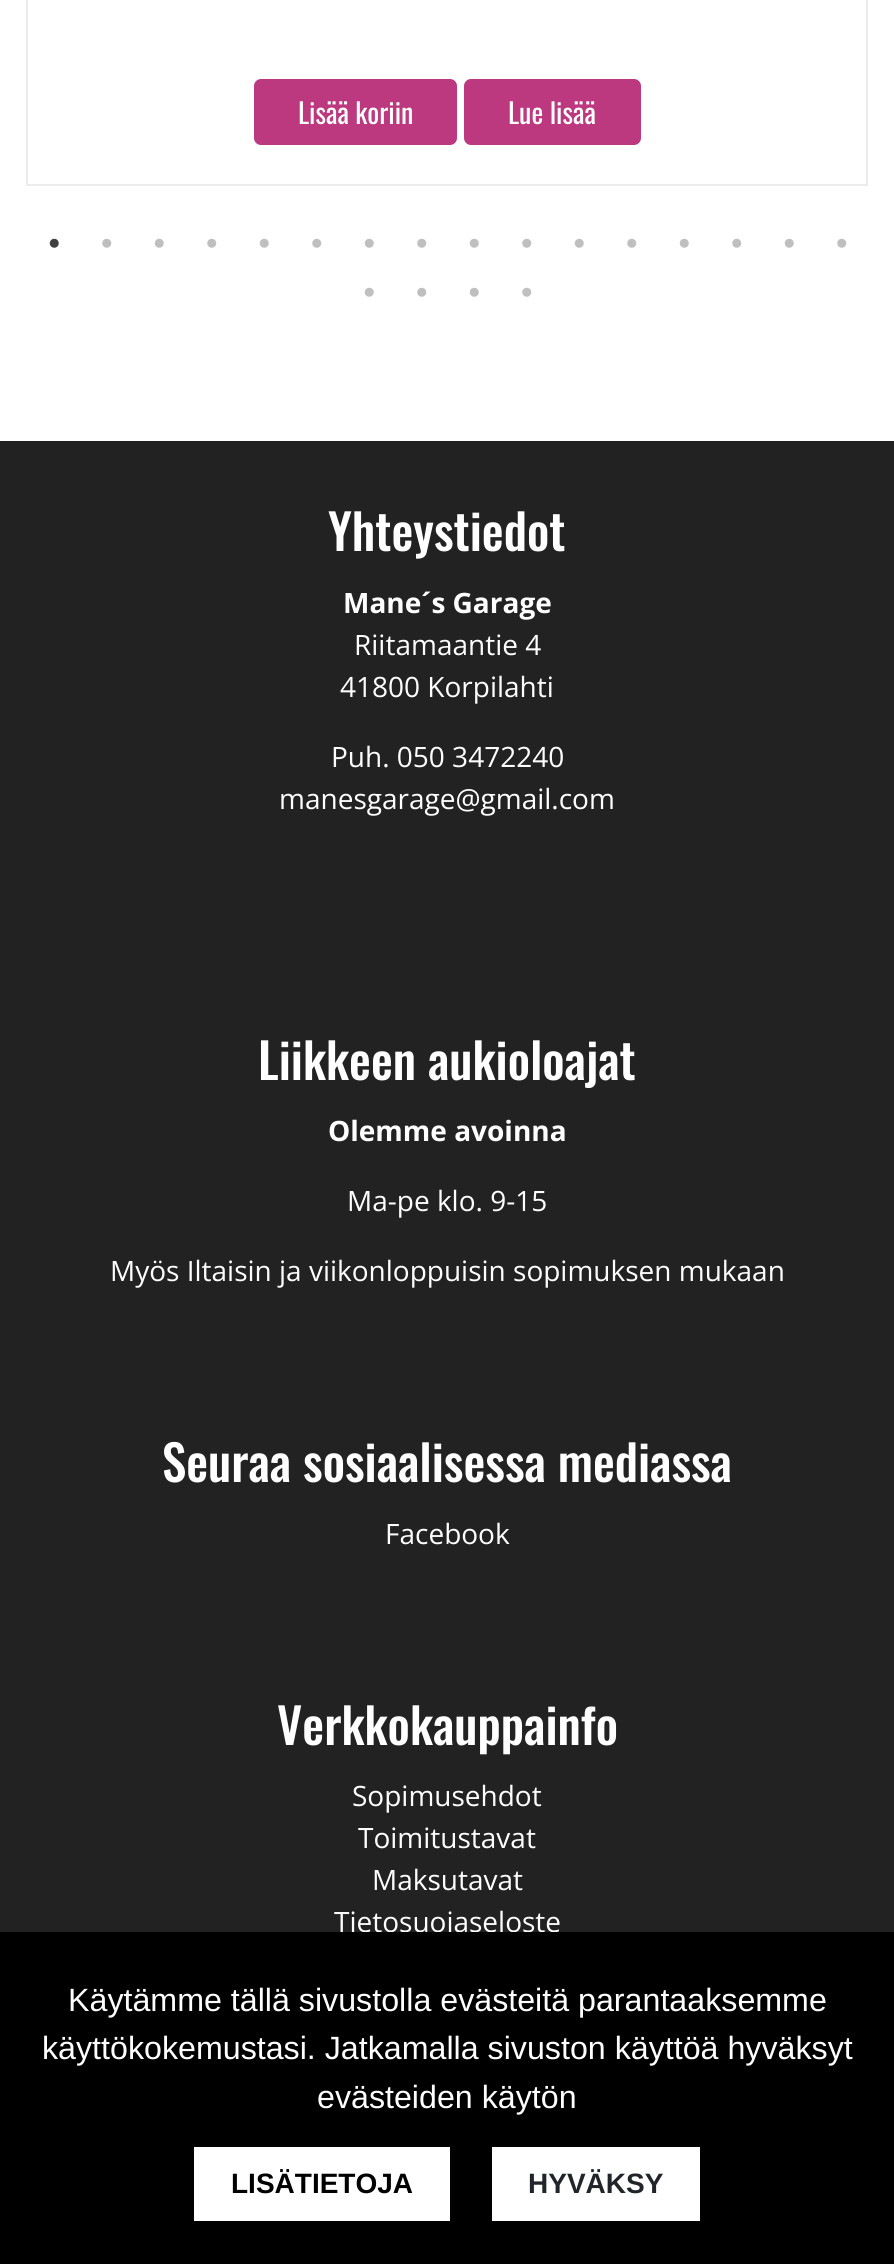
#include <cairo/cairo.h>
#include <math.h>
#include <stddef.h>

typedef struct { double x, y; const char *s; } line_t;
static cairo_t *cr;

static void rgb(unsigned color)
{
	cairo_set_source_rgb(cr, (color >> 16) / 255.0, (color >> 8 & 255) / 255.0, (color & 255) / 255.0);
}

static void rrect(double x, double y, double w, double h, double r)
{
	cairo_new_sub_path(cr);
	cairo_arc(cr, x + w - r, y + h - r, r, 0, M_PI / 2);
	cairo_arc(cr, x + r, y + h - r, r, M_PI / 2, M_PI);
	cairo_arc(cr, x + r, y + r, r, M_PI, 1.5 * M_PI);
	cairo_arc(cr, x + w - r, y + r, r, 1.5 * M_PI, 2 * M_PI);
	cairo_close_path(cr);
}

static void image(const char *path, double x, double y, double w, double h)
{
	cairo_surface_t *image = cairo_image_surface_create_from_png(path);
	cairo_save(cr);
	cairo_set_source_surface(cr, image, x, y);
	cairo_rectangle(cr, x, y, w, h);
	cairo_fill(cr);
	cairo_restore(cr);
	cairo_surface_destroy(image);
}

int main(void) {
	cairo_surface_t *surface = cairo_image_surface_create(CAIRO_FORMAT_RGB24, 894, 2264);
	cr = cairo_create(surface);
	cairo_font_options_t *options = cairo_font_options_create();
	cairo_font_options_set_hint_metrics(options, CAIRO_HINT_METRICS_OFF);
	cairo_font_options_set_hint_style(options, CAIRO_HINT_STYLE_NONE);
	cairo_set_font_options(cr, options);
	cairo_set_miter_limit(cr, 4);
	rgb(0xffffff);
	cairo_paint(cr);
	cairo_rectangle(cr, 27, -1, 840, 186);
	rgb(0xececec);
	cairo_stroke(cr);
	rgb(0xbc387f);
	rrect(255, 80, 201, 64, 6);
	cairo_fill_preserve(cr);
	cairo_stroke(cr);
	rrect(465, 80, 175, 64, 6);
	cairo_fill_preserve(cr);
	cairo_stroke(cr);
	image("img/1.png", 49, 238, 10, 10);
	image("img/2.png", 102, 238, 10, 10);
	image("img/3.png", 154, 238, 10, 10);
	image("img/2.png", 207, 238, 10, 10);
	image("img/3.png", 259, 238, 10, 10);
	image("img/2.png", 312, 238, 10, 10);
	image("img/3.png", 364, 238, 10, 10);
	image("img/2.png", 417, 238, 10, 10);
	image("img/3.png", 469, 238, 10, 10);
	image("img/2.png", 522, 238, 10, 10);
	image("img/3.png", 574, 238, 10, 10);
	image("img/2.png", 627, 238, 10, 10);
	image("img/3.png", 679, 238, 10, 10);
	image("img/2.png", 732, 238, 10, 10);
	image("img/3.png", 784, 238, 10, 10);
	image("img/2.png", 837, 238, 10, 10);
	image("img/3.png", 364, 287, 10, 10);
	image("img/2.png", 417, 287, 10, 10);
	image("img/3.png", 469, 287, 10, 10);
	image("img/2.png", 522, 287, 10, 10);
	rgb(0x222222);
	cairo_rectangle(cr, 0, 441, 894, 1491);
	cairo_fill(cr);
	cairo_select_font_face(cr, "Oswald", CAIRO_FONT_SLANT_NORMAL, CAIRO_FONT_WEIGHT_NORMAL);
	cairo_set_font_size(cr, 28);
	rgb(0xffffff);
	cairo_move_to(cr, 298, 124);
	cairo_show_text(cr, "Lisää koriin");
	cairo_move_to(cr, 508, 124);
	cairo_show_text(cr, "Lue lisää");
	cairo_select_font_face(cr, "Oswald Medium", CAIRO_FONT_SLANT_NORMAL, CAIRO_FONT_WEIGHT_NORMAL);
	cairo_set_font_size(cr, 49);
	cairo_move_to(cr, 328, 551);
	cairo_show_text(cr, "Yhteystiedot");
	cairo_select_font_face(cr, "Open Sans", CAIRO_FONT_SLANT_NORMAL, CAIRO_FONT_WEIGHT_BOLD);
	cairo_set_font_size(cr, 28);
	cairo_move_to(cr, 343, 613);
	cairo_show_text(cr, "Mane´s Garage");
	cairo_select_font_face(cr, "Open Sans", CAIRO_FONT_SLANT_NORMAL, CAIRO_FONT_WEIGHT_NORMAL);
	{
		static const line_t items[] = {
			{354, 655, "Riitamaantie 4"},
			{340, 697, "41800 Korpilahti"},
			{331, 767, "Puh. 050 3472240"},
			{279, 809, "manesgarage@gmail.com"},
		};
		for (size_t i = 0; i < sizeof items / sizeof *items; i++) {
			cairo_move_to(cr, items[i].x, items[i].y);
			cairo_show_text(cr, items[i].s);
		}
	}
	cairo_select_font_face(cr, "Oswald Medium", CAIRO_FONT_SLANT_NORMAL, CAIRO_FONT_WEIGHT_NORMAL);
	cairo_set_font_size(cr, 49);
	cairo_move_to(cr, 258, 1080);
	cairo_show_text(cr, "Liikkeen aukioloajat");
	cairo_select_font_face(cr, "Open Sans", CAIRO_FONT_SLANT_NORMAL, CAIRO_FONT_WEIGHT_BOLD);
	cairo_set_font_size(cr, 28);
	cairo_move_to(cr, 328, 1141);
	cairo_show_text(cr, "Olemme avoinna");
	cairo_select_font_face(cr, "Open Sans", CAIRO_FONT_SLANT_NORMAL, CAIRO_FONT_WEIGHT_NORMAL);
	cairo_move_to(cr, 347, 1211);
	cairo_show_text(cr, "Ma-pe klo. 9-15");
	cairo_move_to(cr, 110, 1281);
	cairo_show_text(cr, "Myös Iltaisin ja viikonloppuisin sopimuksen mukaan");
	cairo_select_font_face(cr, "Oswald Medium", CAIRO_FONT_SLANT_NORMAL, CAIRO_FONT_WEIGHT_NORMAL);
	cairo_set_font_size(cr, 49);
	cairo_move_to(cr, 162, 1482);
	cairo_show_text(cr, "Seuraa sosiaalisessa mediassa");
	cairo_select_font_face(cr, "Open Sans", CAIRO_FONT_SLANT_NORMAL, CAIRO_FONT_WEIGHT_NORMAL);
	cairo_set_font_size(cr, 28);
	cairo_move_to(cr, 385, 1544);
	cairo_show_text(cr, "Facebook");
	cairo_select_font_face(cr, "Oswald Medium", CAIRO_FONT_SLANT_NORMAL, CAIRO_FONT_WEIGHT_NORMAL);
	cairo_set_font_size(cr, 49);
	cairo_move_to(cr, 277, 1745);
	cairo_show_text(cr, "Verkkokauppainfo");
	cairo_select_font_face(cr, "Open Sans", CAIRO_FONT_SLANT_NORMAL, CAIRO_FONT_WEIGHT_NORMAL);
	cairo_set_font_size(cr, 28);
	{
		static const line_t items[] = {
			{352, 1806, "Sopimusehdot"},
			{358, 1848, "Toimitustavat"},
			{372, 1890, "Maksutavat"},
			{334, 1932, "Tietosuojaseloste"},
		};
		for (size_t i = 0; i < sizeof items / sizeof *items; i++) {
			cairo_move_to(cr, items[i].x, items[i].y);
			cairo_show_text(cr, items[i].s);
		}
	}
	rgb(0x000000);
	cairo_rectangle(cr, 0, 1932, 894, 332);
	cairo_fill(cr);
	cairo_select_font_face(cr, "Liberation Sans", CAIRO_FONT_SLANT_NORMAL, CAIRO_FONT_WEIGHT_NORMAL);
	cairo_set_font_size(cr, 32.2);
	rgb(0xffffff);
	{
		static const line_t items[] = {
			{68, 2011, "Käytämme tällä sivustolla evästeitä parantaaksemme"},
			{42, 2059, "käyttökokemustasi. Jatkamalla sivuston käyttöä hyväksyt"},
			{317, 2108, "evästeiden käytön"},
		};
		for (size_t i = 0; i < sizeof items / sizeof *items; i++) {
			cairo_move_to(cr, items[i].x, items[i].y);
			cairo_show_text(cr, items[i].s);
		}
	}
	cairo_rectangle(cr, 194, 2147, 256, 74);
	cairo_fill(cr);
	cairo_select_font_face(cr, "Liberation Sans", CAIRO_FONT_SLANT_NORMAL, CAIRO_FONT_WEIGHT_BOLD);
	cairo_set_font_size(cr, 28);
	rgb(0x000000);
	cairo_move_to(cr, 231, 2193);
	cairo_show_text(cr, "LISÄTIETOJA");
	rgb(0xffffff);
	cairo_rectangle(cr, 492, 2147, 208, 74);
	cairo_fill(cr);
	rgb(0x212529);
	cairo_move_to(cr, 528, 2193);
	cairo_show_text(cr, "HYVÄKSY");
	cairo_surface_write_to_png(surface, "page.png");
	cairo_font_options_destroy(options);
	cairo_destroy(cr);
	cairo_surface_destroy(surface);
	return 0;
}
